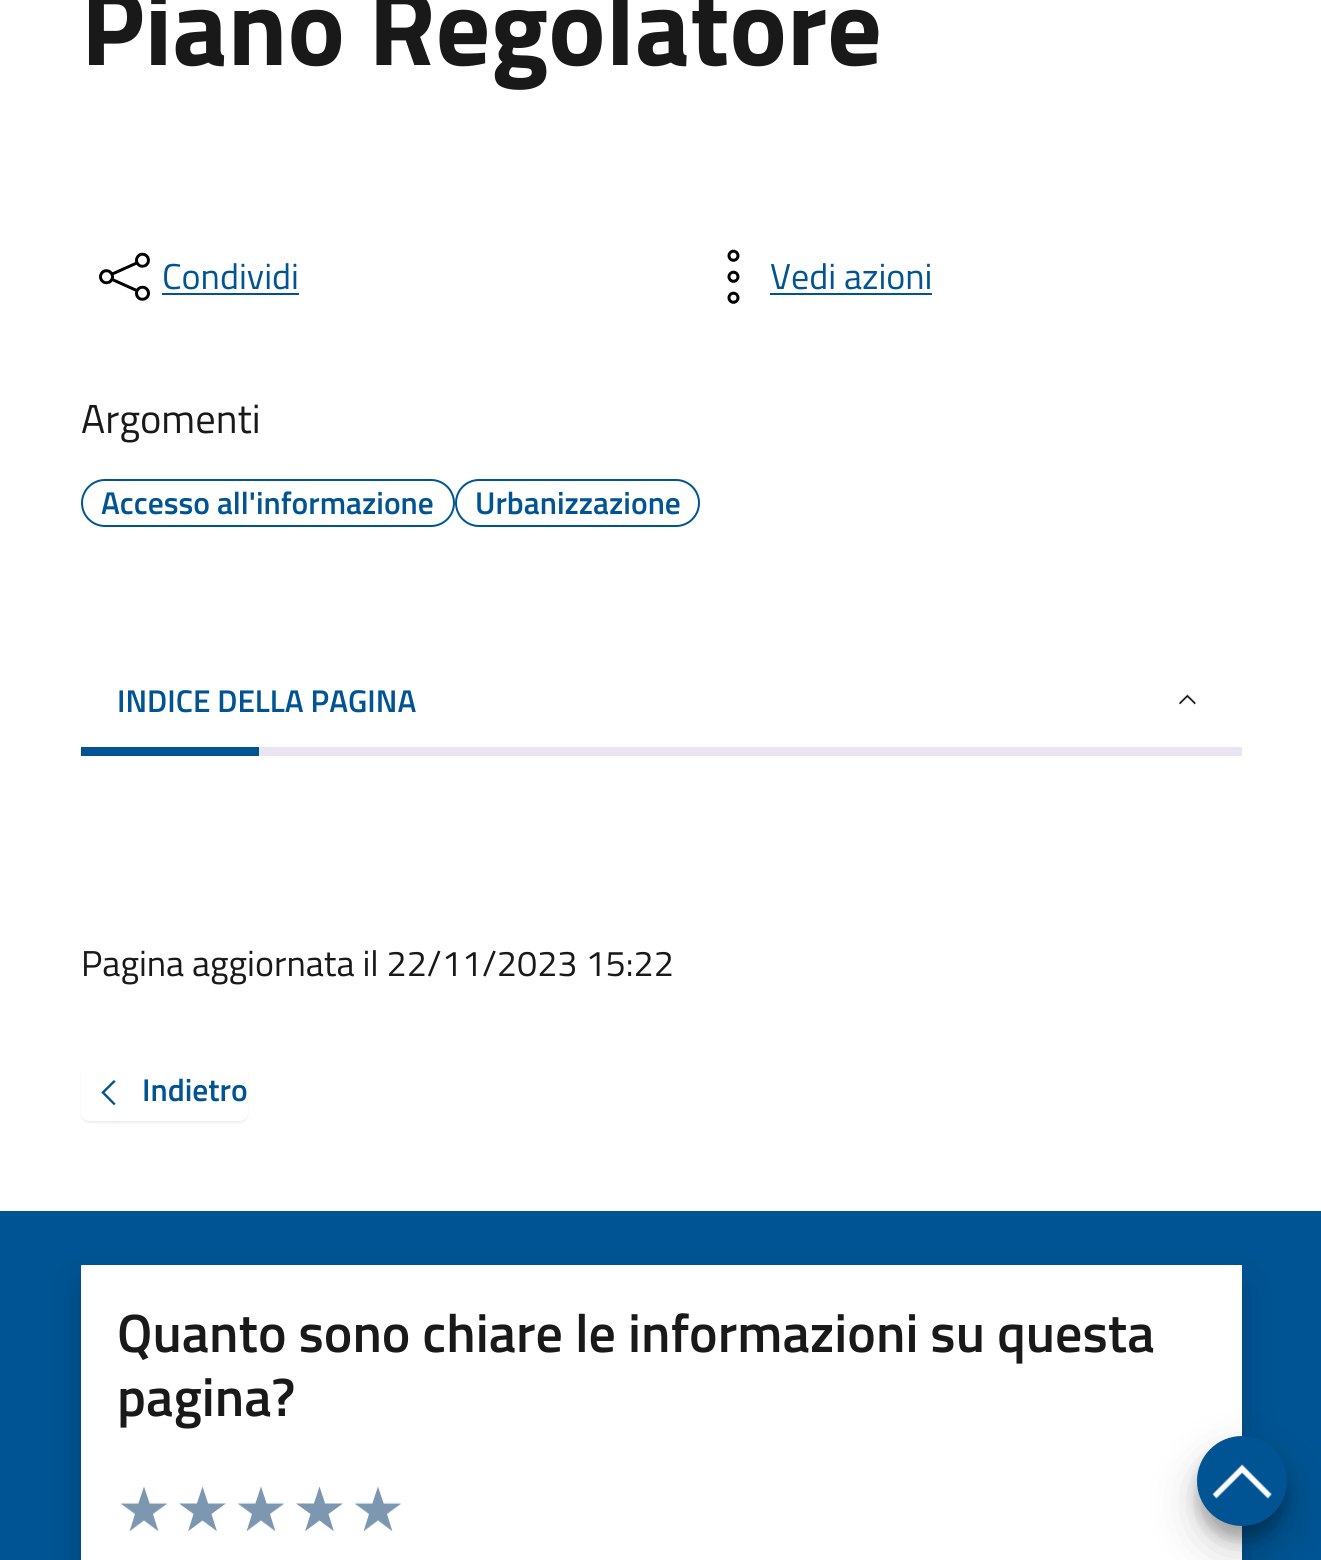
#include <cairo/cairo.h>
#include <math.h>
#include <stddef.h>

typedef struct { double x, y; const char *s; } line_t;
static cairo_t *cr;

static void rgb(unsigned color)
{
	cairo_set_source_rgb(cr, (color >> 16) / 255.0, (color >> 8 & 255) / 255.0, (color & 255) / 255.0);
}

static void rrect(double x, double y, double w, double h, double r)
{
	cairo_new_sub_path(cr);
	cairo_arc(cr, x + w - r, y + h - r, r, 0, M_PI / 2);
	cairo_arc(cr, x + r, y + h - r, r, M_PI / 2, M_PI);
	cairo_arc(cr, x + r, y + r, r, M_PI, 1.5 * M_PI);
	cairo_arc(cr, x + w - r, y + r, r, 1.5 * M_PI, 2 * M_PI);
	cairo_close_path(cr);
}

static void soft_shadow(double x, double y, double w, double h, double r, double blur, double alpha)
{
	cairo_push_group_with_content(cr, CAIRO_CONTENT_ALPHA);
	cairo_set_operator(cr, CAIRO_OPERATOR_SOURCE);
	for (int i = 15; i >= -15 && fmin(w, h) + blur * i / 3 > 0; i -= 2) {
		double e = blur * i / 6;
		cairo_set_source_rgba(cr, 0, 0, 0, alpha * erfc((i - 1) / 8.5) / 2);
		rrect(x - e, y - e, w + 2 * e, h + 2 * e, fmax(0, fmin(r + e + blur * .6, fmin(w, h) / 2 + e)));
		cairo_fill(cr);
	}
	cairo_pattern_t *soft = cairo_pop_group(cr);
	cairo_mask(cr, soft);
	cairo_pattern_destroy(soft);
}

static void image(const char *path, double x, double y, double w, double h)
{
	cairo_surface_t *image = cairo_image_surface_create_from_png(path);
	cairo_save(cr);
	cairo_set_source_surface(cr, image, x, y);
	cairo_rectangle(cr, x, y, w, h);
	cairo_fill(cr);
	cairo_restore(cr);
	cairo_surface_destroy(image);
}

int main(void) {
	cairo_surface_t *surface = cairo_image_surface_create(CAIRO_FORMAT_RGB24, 1321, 1560);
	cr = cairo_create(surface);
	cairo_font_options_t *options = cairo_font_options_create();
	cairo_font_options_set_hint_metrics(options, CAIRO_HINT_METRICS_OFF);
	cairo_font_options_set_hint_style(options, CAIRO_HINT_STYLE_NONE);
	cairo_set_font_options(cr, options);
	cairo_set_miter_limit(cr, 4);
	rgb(0xffffff);
	cairo_paint(cr);
	image("img/1.png", 99, 252, 51, 49);
	rgb(0x005493);
	cairo_rectangle(cr, 162, 293, 137, 2);
	cairo_fill(cr);
	image("img/2.png", 727, 249, 13, 55);
	cairo_rectangle(cr, 770, 293, 162, 2);
	cairo_fill(cr);
	rrect(82, 480, 372, 46, 23);
	cairo_stroke(cr);
	rrect(456, 480, 243, 46, 23);
	cairo_stroke(cr);
	image("img/3.png", 1179, 694, 17, 11);
	rgb(0xe9e6f2);
	cairo_rectangle(cr, 259, 747, 983, 9);
	cairo_fill(cr);
	rgb(0x005493);
	cairo_rectangle(cr, 81, 747, 178, 9);
	cairo_fill(cr);
	cairo_save(cr);
	cairo_set_fill_rule(cr, CAIRO_FILL_RULE_EVEN_ODD);
	cairo_new_path(cr);
	cairo_move_to(cr, 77, 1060);
	cairo_line_to(cr, 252, 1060);
	cairo_line_to(cr, 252, 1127);
	cairo_line_to(cr, 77, 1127);
	cairo_close_path(cr);
	cairo_move_to(cr, 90, 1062);
	cairo_line_to(cr, 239, 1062);
	cairo_curve_to(cr, 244, 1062, 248, 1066, 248, 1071);
	cairo_line_to(cr, 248, 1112);
	cairo_curve_to(cr, 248, 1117, 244, 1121, 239, 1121);
	cairo_line_to(cr, 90, 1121);
	cairo_curve_to(cr, 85, 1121, 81, 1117, 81, 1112);
	cairo_line_to(cr, 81, 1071);
	cairo_curve_to(cr, 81, 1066, 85, 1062, 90, 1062);
	cairo_close_path(cr);
	cairo_clip(cr);
	rgb(0x000000);
	soft_shadow(81, 1064, 167, 59, 9, 1, 0.07);
	cairo_restore(cr);
	image("img/4.png", 101, 1080, 15, 26);
	cairo_rectangle(cr, 0, 1211, 1321, 349);
	cairo_fill(cr);
	rgb(0x000000);
	soft_shadow(81, 1285, 1161, 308, 0, 20, 0.15);
	rgb(0xffffff);
	cairo_rectangle(cr, 81, 1265, 1161, 295);
	cairo_fill(cr);
	image("img/5.png", 120, 1486, 48, 46);
	image("img/6.png", 179, 1486, 47, 45);
	image("img/5.png", 237, 1486, 48, 46);
	image("img/6.png", 296, 1486, 47, 45);
	image("img/5.png", 354, 1486, 48, 46);
	rgb(0x000000);
	soft_shadow(1197, 1449, 90, 90, 45, 7, 0.23);
	soft_shadow(1197, 1458, 90, 90, 45, 22.5, 0.19);
	rgb(0x005493);
	cairo_arc(cr, 1242, 1481, 45, 0, 2 * M_PI);
	cairo_fill(cr);
	image("img/7.png", 1212, 1464, 60, 35);
	cairo_select_font_face(cr, "Titillium Web", CAIRO_FONT_SLANT_NORMAL, CAIRO_FONT_WEIGHT_BOLD);
	cairo_set_font_size(cr, 108);
	rgb(0x191919);
	cairo_move_to(cr, 81, 65);
	cairo_show_text(cr, "Piano Regolatore");
	cairo_select_font_face(cr, "Titillium Web", CAIRO_FONT_SLANT_NORMAL, CAIRO_FONT_WEIGHT_NORMAL);
	cairo_set_font_size(cr, 36);
	rgb(0x005493);
	cairo_move_to(cr, 162, 289);
	cairo_show_text(cr, "Condividi");
	cairo_move_to(cr, 770, 289);
	cairo_show_text(cr, "Vedi azioni");
	cairo_set_font_size(cr, 40.5);
	rgb(0x191919);
	cairo_move_to(cr, 81, 433);
	cairo_show_text(cr, "Argomenti");
	cairo_select_font_face(cr, "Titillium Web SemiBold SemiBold", CAIRO_FONT_SLANT_NORMAL, CAIRO_FONT_WEIGHT_NORMAL);
	cairo_set_font_size(cr, 31.5);
	rgb(0x005493);
	{
		static const line_t items[] = {
			{101, 514, "Accesso all'informazione"},
			{475, 514, "Urbanizzazione"},
			{117, 712, "INDICE DELLA PAGINA"},
		};
		for (size_t i = 0; i < sizeof items / sizeof *items; i++) {
			cairo_move_to(cr, items[i].x, items[i].y);
			cairo_show_text(cr, items[i].s);
		}
	}
	cairo_select_font_face(cr, "Titillium Web", CAIRO_FONT_SLANT_NORMAL, CAIRO_FONT_WEIGHT_NORMAL);
	cairo_set_font_size(cr, 36);
	rgb(0x191919);
	cairo_move_to(cr, 81, 976);
	cairo_show_text(cr, "Pagina aggiornata il 22/11/2023 15:22");
	cairo_select_font_face(cr, "Titillium Web SemiBold SemiBold", CAIRO_FONT_SLANT_NORMAL, CAIRO_FONT_WEIGHT_NORMAL);
	cairo_set_font_size(cr, 31.5);
	rgb(0x005493);
	cairo_move_to(cr, 142, 1101);
	cairo_show_text(cr, "Indietro");
	cairo_set_font_size(cr, 54);
	rgb(0x191919);
	cairo_move_to(cr, 117, 1352);
	cairo_show_text(cr, "Quanto sono chiare le informazioni su questa");
	cairo_move_to(cr, 117, 1416);
	cairo_show_text(cr, "pagina?");
	cairo_surface_write_to_png(surface, "page.png");
	cairo_font_options_destroy(options);
	cairo_destroy(cr);
	cairo_surface_destroy(surface);
	return 0;
}
